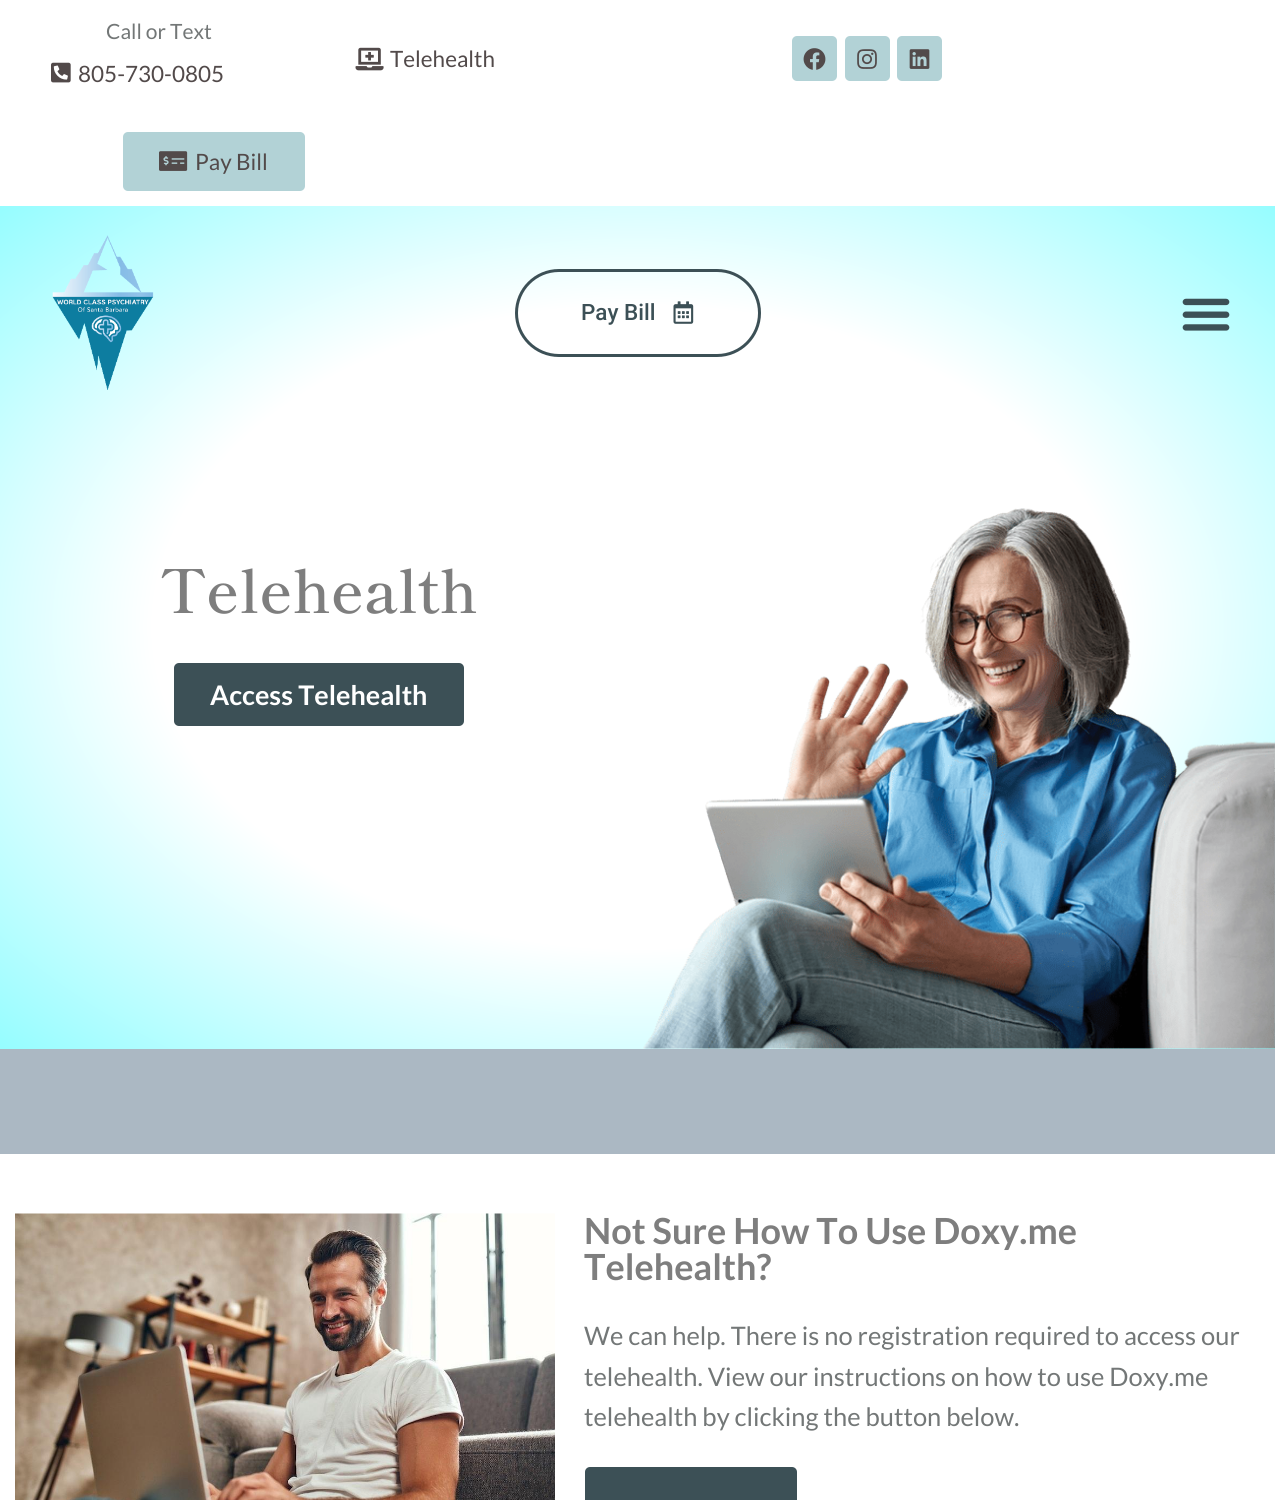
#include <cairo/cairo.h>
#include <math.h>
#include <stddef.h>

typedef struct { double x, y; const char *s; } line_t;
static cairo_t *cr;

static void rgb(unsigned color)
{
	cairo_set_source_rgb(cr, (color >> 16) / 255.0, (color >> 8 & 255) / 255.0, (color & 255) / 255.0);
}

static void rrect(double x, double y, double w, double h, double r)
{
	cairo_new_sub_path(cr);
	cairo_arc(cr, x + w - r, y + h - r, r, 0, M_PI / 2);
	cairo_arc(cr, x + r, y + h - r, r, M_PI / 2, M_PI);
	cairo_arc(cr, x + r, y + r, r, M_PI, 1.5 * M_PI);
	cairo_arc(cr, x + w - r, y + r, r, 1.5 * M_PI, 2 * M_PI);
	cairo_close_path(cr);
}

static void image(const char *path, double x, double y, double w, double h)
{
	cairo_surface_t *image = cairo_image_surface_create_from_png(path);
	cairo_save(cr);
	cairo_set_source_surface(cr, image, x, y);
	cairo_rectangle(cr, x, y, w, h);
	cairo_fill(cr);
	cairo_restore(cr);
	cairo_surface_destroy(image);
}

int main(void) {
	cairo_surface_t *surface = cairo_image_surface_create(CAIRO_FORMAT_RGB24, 1275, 1500);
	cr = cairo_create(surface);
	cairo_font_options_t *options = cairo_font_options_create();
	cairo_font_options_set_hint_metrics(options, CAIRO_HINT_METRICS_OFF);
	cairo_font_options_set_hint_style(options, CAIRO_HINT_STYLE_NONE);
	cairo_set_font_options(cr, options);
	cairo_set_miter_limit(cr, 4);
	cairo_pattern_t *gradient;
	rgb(0xffffff);
	cairo_paint(cr);
	image("img/1.png", 51, 62, 20, 21);
	image("img/2.png", 355, 47, 29, 24);
	rgb(0xb2d2d6);
	rrect(792, 36, 45, 45, 5);
	cairo_fill(cr);
	image("img/3.png", 803, 48, 23, 22);
	rrect(845, 36, 45, 45, 5);
	cairo_fill(cr);
	image("img/4.png", 857, 49, 20, 20);
	rrect(897, 36, 45, 45, 5);
	cairo_fill(cr);
	image("img/5.png", 909, 49, 21, 20);
	rrect(123, 132, 182, 59, 5);
	cairo_fill(cr);
	image("img/6.png", 159, 151, 29, 20);
	gradient = cairo_pattern_create_radial(0, 0, 0, 0, 0, 1);
	cairo_pattern_set_matrix(gradient, &(cairo_matrix_t){1.0 / 902, 0, 0, 1.0 / 596, -1.0 * 638 / 902, -1.0 * 627 / 596});
	cairo_pattern_add_color_stop_rgba(gradient, 0.54, 1, 1, 1, 1);
	cairo_pattern_add_color_stop_rgba(gradient, 1, 0.588, 0.992, 1, 1);
	cairo_set_source(cr, gradient);
	cairo_pattern_destroy(gradient);
	cairo_rectangle(cr, 0, 206, 1275, 843);
	cairo_fill(cr);
	image("img/7.png", 52, 235, 102, 155);
	rrect(516.5, 270.5, 243, 85, 42.5);
	rgb(0x3c5056);
	cairo_set_line_width(cr, 3);
	cairo_stroke(cr);
	image("img/8.png", 673, 301, 21, 23);
	image("img/9.png", 1182, 298, 48, 33);
	rrect(174, 663, 290, 63, 5);
	cairo_fill(cr);
	image("img/10.png", 643, 508, 632, 541);
	rgb(0xabb8c3);
	cairo_rectangle(cr, 0, 1049, 1275, 105);
	cairo_fill(cr);
	image("img/11.png", 15, 1213, 540, 287);
	rgb(0x3c5056);
	rrect(585, 1467, 212, 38, 5);
	cairo_fill(cr);
	cairo_select_font_face(cr, "Lato", CAIRO_FONT_SLANT_NORMAL, CAIRO_FONT_WEIGHT_NORMAL);
	cairo_set_font_size(cr, 21);
	rgb(0x737777);
	cairo_move_to(cr, 106, 39);
	cairo_show_text(cr, "Call or Text");
	cairo_set_font_size(cr, 22.5);
	rgb(0x524a4a);
	{
		static const line_t items[] = {
			{78, 82, "805-730-0805"},
			{390, 67, "Telehealth"},
			{195, 170, "Pay Bill"},
		};
		for (size_t i = 0; i < sizeof items / sizeof *items; i++) {
			cairo_move_to(cr, items[i].x, items[i].y);
			cairo_show_text(cr, items[i].s);
		}
	}
	cairo_select_font_face(cr, "Roboto Medium", CAIRO_FONT_SLANT_NORMAL, CAIRO_FONT_WEIGHT_NORMAL);
	rgb(0x3c5056);
	cairo_move_to(cr, 581, 320);
	cairo_show_text(cr, "Pay Bill");
	cairo_select_font_face(cr, "Shippori Mincho SemiBold", CAIRO_FONT_SLANT_NORMAL, CAIRO_FONT_WEIGHT_NORMAL);
	cairo_set_font_size(cr, 60);
	rgb(0x7e7e7e);
	cairo_move_to(cr, 160, 613);
	cairo_show_text(cr, "Telehealth");
	cairo_select_font_face(cr, "Lato", CAIRO_FONT_SLANT_NORMAL, CAIRO_FONT_WEIGHT_BOLD);
	cairo_set_font_size(cr, 27);
	rgb(0xffffff);
	cairo_move_to(cr, 210, 705);
	cairo_show_text(cr, "Access Telehealth");
	cairo_set_font_size(cr, 36);
	rgb(0x7e7e7e);
	cairo_move_to(cr, 584, 1244);
	cairo_show_text(cr, "Not Sure How To Use Doxy.me");
	cairo_move_to(cr, 584, 1280);
	cairo_show_text(cr, "Telehealth?");
	cairo_select_font_face(cr, "Lato", CAIRO_FONT_SLANT_NORMAL, CAIRO_FONT_WEIGHT_NORMAL);
	cairo_set_font_size(cr, 25.5);
	rgb(0x737777);
	{
		static const line_t items[] = {
			{584, 1345, "We can help. There is no registration required to access our"},
			{584, 1386, "telehealth. View our instructions on how to use Doxy.me"},
			{584, 1426, "telehealth by clicking the button below."},
		};
		for (size_t i = 0; i < sizeof items / sizeof *items; i++) {
			cairo_move_to(cr, items[i].x, items[i].y);
			cairo_show_text(cr, items[i].s);
		}
	}
	cairo_surface_write_to_png(surface, "page.png");
	cairo_font_options_destroy(options);
	cairo_destroy(cr);
	cairo_surface_destroy(surface);
	return 0;
}
